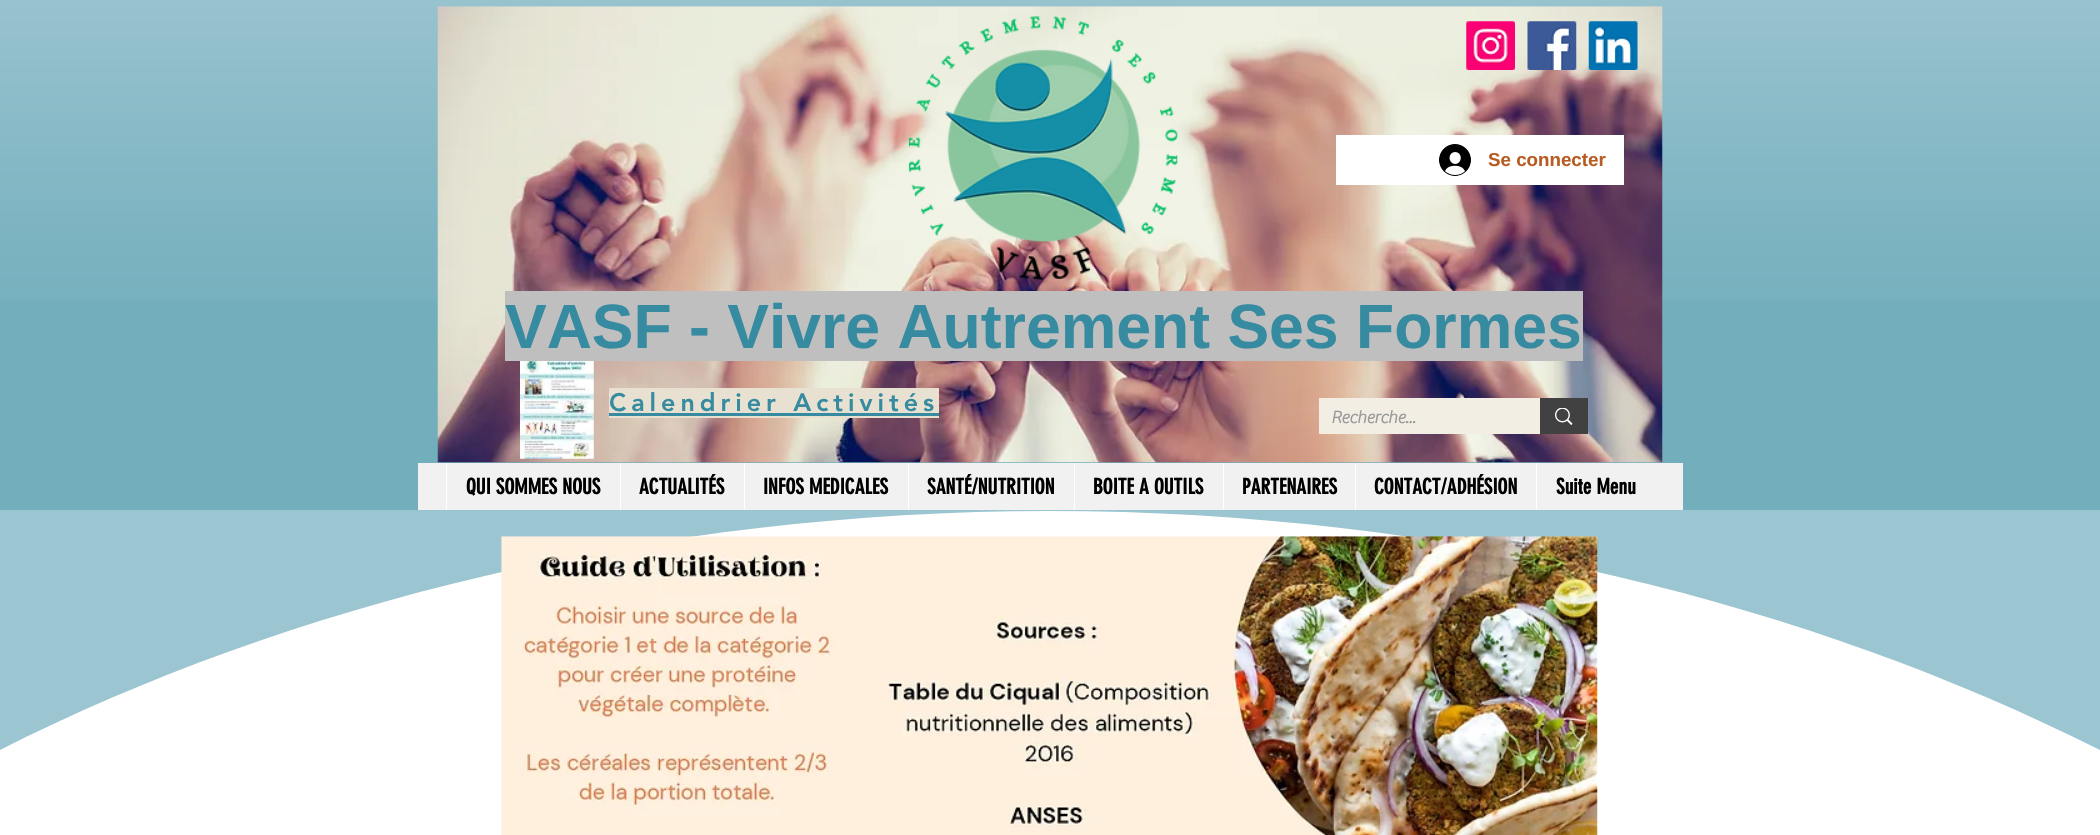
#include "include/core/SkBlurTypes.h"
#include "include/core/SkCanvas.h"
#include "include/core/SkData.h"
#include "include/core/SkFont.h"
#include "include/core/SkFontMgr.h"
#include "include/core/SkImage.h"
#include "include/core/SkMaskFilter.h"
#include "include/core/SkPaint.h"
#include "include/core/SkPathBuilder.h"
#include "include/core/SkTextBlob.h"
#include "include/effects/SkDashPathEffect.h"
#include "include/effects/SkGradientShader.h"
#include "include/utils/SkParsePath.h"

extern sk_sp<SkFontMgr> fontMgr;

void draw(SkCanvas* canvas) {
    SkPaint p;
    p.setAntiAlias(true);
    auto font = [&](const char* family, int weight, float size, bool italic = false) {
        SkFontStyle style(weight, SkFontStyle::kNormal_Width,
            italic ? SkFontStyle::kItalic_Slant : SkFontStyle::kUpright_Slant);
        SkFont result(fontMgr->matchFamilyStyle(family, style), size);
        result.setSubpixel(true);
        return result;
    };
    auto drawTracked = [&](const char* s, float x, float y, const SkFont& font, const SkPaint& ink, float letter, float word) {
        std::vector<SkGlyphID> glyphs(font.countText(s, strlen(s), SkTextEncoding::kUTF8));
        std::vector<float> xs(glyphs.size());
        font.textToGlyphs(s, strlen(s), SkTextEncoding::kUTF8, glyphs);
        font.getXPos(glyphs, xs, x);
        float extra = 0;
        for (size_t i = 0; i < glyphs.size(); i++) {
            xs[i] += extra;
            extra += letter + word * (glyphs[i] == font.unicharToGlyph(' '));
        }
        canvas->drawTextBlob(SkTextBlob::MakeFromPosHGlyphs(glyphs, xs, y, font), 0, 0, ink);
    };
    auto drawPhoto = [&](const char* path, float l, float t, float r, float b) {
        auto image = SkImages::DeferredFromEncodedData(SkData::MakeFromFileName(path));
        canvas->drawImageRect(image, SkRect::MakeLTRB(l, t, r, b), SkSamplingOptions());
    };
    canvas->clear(0xFFFFFFFF);
    p.setColor(0xFF73AEBD);
    canvas->drawRect(SkRect::MakeLTRB(0, 0, 2100, 511), p);
    drawPhoto("media/1.png", 0, 0, 2100, 301);
    drawPhoto("media/5.png", 437, 6, 1663, 463);
    drawPhoto("media/2.png", 1466, 21, 1515, 70);
    drawPhoto("media/3.png", 1527, 21, 1577, 70);
    drawPhoto("media/4.png", 1588, 21, 1638, 70);
    drawPhoto("media/6.png", 908, 16, 1178, 281);
    p.setColor(0xFFFFFFFF);
    canvas->drawRect(SkRect::MakeLTRB(1336, 135, 1624, 185), p);
    drawPhoto("media/7.png", 1439, 144, 1471, 176);
    auto font1 = font("Liberation Sans", 700, 18.75f);
    p.setColor(0xFFB85C23);
    canvas->drawString("Se connecter", 1488, 166, font1, p);
    p.setColor(0xFFBFBFBF);
    canvas->drawRect(SkRect::MakeLTRB(505, 291, 1583, 361), p);
    auto font2 = font("Liberation Sans", 700, 62.5f);
    p.setColor(0xFF368BA0);
    canvas->drawString("VASF - Vivre Autrement Ses Formes", 505, 348, font2, p);
    drawPhoto("media/8.png", 520, 361, 594, 459);
    p.setColor(0xFFE8E1D1);
    canvas->drawRect(SkRect::MakeLTRB(609, 388, 939, 418), p);
    auto font3 = font("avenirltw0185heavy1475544", 900, 25);
    p.setColor(0xFF368BA0);
    drawTracked("Calendrier Activités", 609, 411, font3, p, 5, 0);
    canvas->drawRect(SkRect::MakeLTRB(609, 413, 939, 416), p);
    p.setColor(0xFFF2EEE4);
    canvas->drawRect(SkRect::MakeLTRB(1319, 398, 1540, 434), p);
    auto font4 = font("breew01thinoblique", 700, 17.5f);
    p.setColor(0xFF999999);
    canvas->drawString("Recherche...", 1331, 423, font4, p);
    p.setColor(0xFF414141);
    canvas->drawRect(SkRect::MakeLTRB(1540, 398, 1588, 434), p);
    drawPhoto("media/9.png", 1555, 408, 1573, 425);
    p.setColor(0xFFF1F1F1);
    canvas->drawRect(SkRect::MakeLTRB(418, 463, 1683, 511), p);
    p.setColor(0xFFFFFFFF);
    canvas->drawRect(SkRect::MakeLTRB(446, 463, 447, 511), p);
    auto font5 = font("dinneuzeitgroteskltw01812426", 700, 21.25f);
    p.setColor(0xFF000000);
    canvas->drawString("QUI SOMMES NOUS", 466, 494, font5, p);
    p.setColor(0xFFFFFFFF);
    canvas->drawRect(SkRect::MakeLTRB(620, 463, 621, 511), p);
    p.setColor(0xFF000000);
    canvas->drawString("ACTUALITÉS", 639, 494, font5, p);
    p.setColor(0xFFFFFFFF);
    canvas->drawRect(SkRect::MakeLTRB(744, 463, 745, 511), p);
    p.setColor(0xFF000000);
    canvas->drawString("INFOS MEDICALES", 763, 494, font5, p);
    p.setColor(0xFFFFFFFF);
    canvas->drawRect(SkRect::MakeLTRB(908, 463, 909, 511), p);
    p.setColor(0xFF000000);
    canvas->drawString("SANTÉ/NUTRITION", 927, 494, font5, p);
    p.setColor(0xFFFFFFFF);
    canvas->drawRect(SkRect::MakeLTRB(1074, 463, 1075, 511), p);
    p.setColor(0xFF000000);
    canvas->drawString("BOITE A OUTILS", 1093, 494, font5, p);
    p.setColor(0xFFFFFFFF);
    canvas->drawRect(SkRect::MakeLTRB(1223, 463, 1224, 511), p);
    p.setColor(0xFF000000);
    canvas->drawString("PARTENAIRES", 1242, 494, font5, p);
    p.setColor(0xFFFFFFFF);
    canvas->drawRect(SkRect::MakeLTRB(1355, 463, 1356, 511), p);
    p.setColor(0xFF000000);
    canvas->drawString("CONTACT/ADHÉSION", 1374, 494, font5, p);
    p.setColor(0xFFFFFFFF);
    canvas->drawRect(SkRect::MakeLTRB(1536, 463, 1537, 511), p);
    p.setColor(0xFF000000);
    canvas->drawString("Suite Menu", 1556, 494, font5, p);
    p.setColor(0xFF9BC5D0);
    canvas->drawPath(SkPathBuilder(SkPathFillType::kEvenOdd).moveTo(2100, 750).cubicTo(1812, 605, 1447, 511, 1050, 511).cubicTo(653, 511, 287, 605, 0, 750).lineTo(0, 761).lineTo(2100, 761).close().moveTo(0, 510).lineTo(2100, 510).lineTo(2100, 761).lineTo(0, 761).close().detach(), p);
    drawPhoto("media/10.png", 501, 536, 1598, 835);
}
